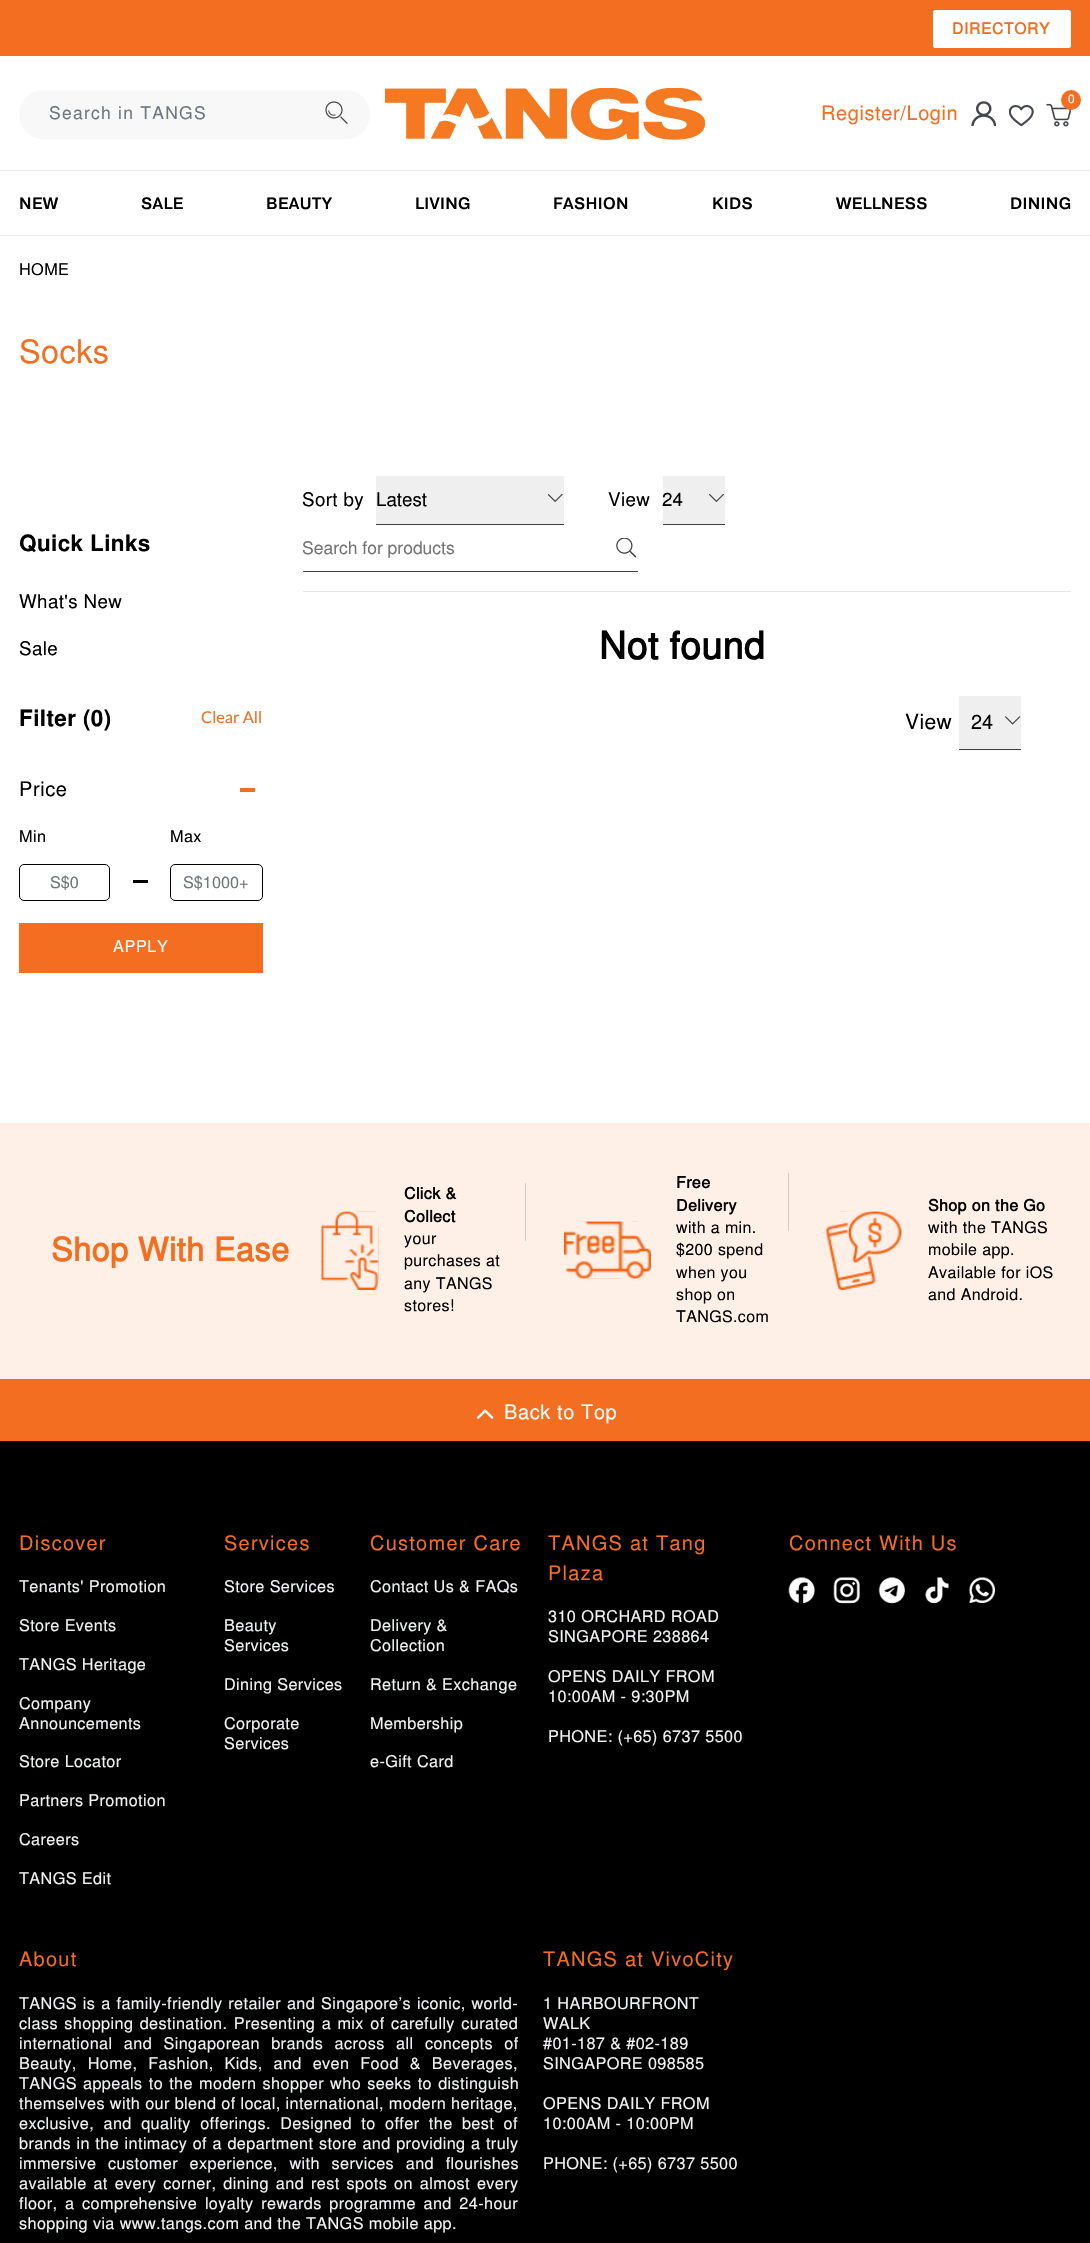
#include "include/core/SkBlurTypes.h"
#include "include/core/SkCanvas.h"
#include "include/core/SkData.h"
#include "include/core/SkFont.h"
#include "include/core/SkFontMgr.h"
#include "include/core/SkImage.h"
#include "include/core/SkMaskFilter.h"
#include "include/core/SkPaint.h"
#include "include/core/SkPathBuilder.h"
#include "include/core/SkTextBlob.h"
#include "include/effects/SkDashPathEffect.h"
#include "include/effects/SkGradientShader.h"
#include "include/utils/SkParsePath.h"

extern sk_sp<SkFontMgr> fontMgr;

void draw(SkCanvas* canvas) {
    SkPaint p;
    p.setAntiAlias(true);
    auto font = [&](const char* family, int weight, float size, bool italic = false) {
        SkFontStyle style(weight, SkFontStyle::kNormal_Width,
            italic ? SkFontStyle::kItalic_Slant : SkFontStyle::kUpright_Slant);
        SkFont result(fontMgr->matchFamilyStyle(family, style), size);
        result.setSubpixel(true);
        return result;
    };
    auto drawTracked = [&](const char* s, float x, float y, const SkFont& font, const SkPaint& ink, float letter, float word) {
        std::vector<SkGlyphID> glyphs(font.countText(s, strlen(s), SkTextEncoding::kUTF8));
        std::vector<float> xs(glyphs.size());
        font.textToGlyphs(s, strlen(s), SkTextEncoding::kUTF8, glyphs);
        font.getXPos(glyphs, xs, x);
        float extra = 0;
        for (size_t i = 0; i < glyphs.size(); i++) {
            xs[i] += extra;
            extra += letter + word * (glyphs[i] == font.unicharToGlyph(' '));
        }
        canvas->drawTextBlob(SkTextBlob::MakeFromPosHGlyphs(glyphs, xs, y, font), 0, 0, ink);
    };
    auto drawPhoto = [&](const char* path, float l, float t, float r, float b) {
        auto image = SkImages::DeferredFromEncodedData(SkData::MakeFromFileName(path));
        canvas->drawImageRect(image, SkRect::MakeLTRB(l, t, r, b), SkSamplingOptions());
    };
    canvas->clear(0xFFFFFFFF);
    p.setColor(0xFFF36E21);
    canvas->drawRect(SkRect::MakeLTRB(0, 0, 1090, 56), p);
    p.setColor(0xFFFFFFFF);
    canvas->drawRoundRect(SkRect::MakeLTRB(933, 10, 1071, 48), 2.5f, 2.5f, p);
    auto font1 = font("FreeSans", 700, 15.5f);
    p.setColor(0xFFF36E21);
    drawTracked("DIRECTORY", 952, 34, font1, p, 0.75f, 0);
    p.setColor(0xFFF8F8F8);
    canvas->drawRoundRect(SkRect::MakeLTRB(19, 90, 370, 139), 24.5f, 24.5f, p);
    auto font2 = font("FreeSans", 400, 17.5f);
    p.setColor(0xFF72757E);
    drawTracked("Search in TANGS", 49, 119, font2, p, 1.25f, 0);
    drawPhoto("media/1.png", 325, 101, 348, 124);
    drawPhoto("media/2.png", 385, 88, 705, 140);
    drawPhoto("media/3.png", 1046, 103, 1071, 127);
    p.setColor(0xFFF36E21);
    canvas->drawCircle(1071, 100, 10, p);
    auto font3 = font("FreeSans", 400, 12);
    p.setColor(0xFFFFFFFF);
    drawTracked("0", 1068, 103, font3, p, 0.38f, 0);
    auto font4 = font("FreeSans", 400, 20);
    p.setColor(0xFFF36E21);
    drawTracked("Register/Login", 821, 120, font4, p, 0.6f, 0);
    drawPhoto("media/4.png", 971, 101, 996, 126);
    drawPhoto("media/5.png", 1009, 105, 1034, 127);
    p.setColor(0xFFEBEBEB);
    canvas->drawRect(SkRect::MakeLTRB(0, 170, 1090, 171), p);
    auto font5 = font("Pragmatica", 500, 16.25f);
    p.setColor(0xFF000000);
    {
        const struct { const char* s; float x, y; } items[] = {
            {"NEW", 19, 209},
            {"SALE", 141, 209},
            {"BEAUTY", 266, 209},
            {"LIVING", 415, 209},
            {"FASHION", 553, 209},
            {"KIDS", 712, 209},
            {"WELLNESS", 836, 209},
            {"DINING", 1010, 209},
        };
        for (auto [s, x, y] : items) {
            drawTracked(s, x, y, font5, p, 0.38f, 0);
        }
    }
    p.setColor(0xFFEBEBEB);
    canvas->drawRect(SkRect::MakeLTRB(0, 235, 1090, 236), p);
    auto font6 = font("FreeSans", 400, 16.25f);
    p.setColor(0xFF000000);
    drawTracked("HOME", 19, 275, font6, p, 0.38f, 0);
    auto font7 = font("FreeSans", 400, 32.5f);
    p.setColor(0xFFF36E21);
    drawTracked("Socks", 19, 363, font7, p, 0.38f, 0);
    auto font8 = font("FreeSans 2", 700, 22.5f);
    p.setColor(0xFF000000);
    drawTracked("Quick Links", 19, 551, font8, p, 0.38f, 0);
    auto font9 = font("FreeSans", 400, 18.75f);
    drawTracked("What's New", 19, 608, font9, p, 0.38f, 0);
    drawTracked("Sale", 19, 655, font9, p, 0.38f, 0);
    drawTracked("Filter (0)", 19, 726, font8, p, 0.38f, 0);
    auto font10 = font("Lato", 400, 16.25f);
    p.setColor(0xFFF36E21);
    canvas->drawString("Clear All", 201, 723, font10, p);
    p.setColor(0xFF000000);
    drawTracked("Price", 19, 796, font4, p, 0.6f, 0);
    p.setColor(0xFFF36E21);
    canvas->drawRect(SkRect::MakeLTRB(240, 788, 255, 792), p);
    p.setColor(0xFF000000);
    drawTracked("Min", 19, 842, font6, p, 0.38f, 0);
    p.setStyle(SkPaint::kStroke_Style);
    p.setStrokeWidth(1);
    canvas->drawRoundRect(SkRect::MakeLTRB(19.5f, 864.5f, 109.5f, 900.5f), 4.5f, 4.5f, p);
    p.setStyle(SkPaint::kFill_Style);
    p.setColor(0xFF72757E);
    canvas->drawString("S$0", 50, 888, font6, p);
    p.setColor(0xFF000000);
    canvas->drawRect(SkRect::MakeLTRB(133, 880, 148, 883), p);
    drawTracked("Max", 170, 842, font6, p, 0.38f, 0);
    p.setStyle(SkPaint::kStroke_Style);
    canvas->drawRoundRect(SkRect::MakeLTRB(170.5f, 864.5f, 262.5f, 900.5f), 4.5f, 4.5f, p);
    p.setStyle(SkPaint::kFill_Style);
    p.setColor(0xFF72757E);
    canvas->drawString("S$1000+", 183, 888, font6, p);
    p.setColor(0xFFF36E21);
    canvas->drawRect(SkRect::MakeLTRB(19, 923, 263, 973), p);
    p.setColor(0xFFFFFFFF);
    drawTracked("APPLY", 113, 952, font6, p, 0.6f, 0);
    p.setColor(0xFFE6E7E8);
    canvas->drawRect(SkRect::MakeLTRB(303, 591, 1071, 592), p);
    p.setColor(0xFF000000);
    drawTracked("Sort by", 302, 506, font9, p, 0.38f, 0);
    p.setColor(0xFFEFEFEF);
    canvas->drawRect(SkRect::MakeLTRB(376, 476, 564, 524), p);
    drawPhoto("media/6.png", 548, 494, 563, 502);
    p.setColor(0xFF404040);
    canvas->drawRect(SkRect::MakeLTRB(376, 524, 564, 525), p);
    p.setColor(0xFF000000);
    canvas->drawString("Latest", 376, 506, font9, p);
    drawTracked("View", 608, 506, font9, p, 0.38f, 0);
    p.setColor(0xFFEFEFEF);
    canvas->drawRect(SkRect::MakeLTRB(663, 476, 725, 524), p);
    drawPhoto("media/7.png", 709, 494, 724, 502);
    p.setColor(0xFF404040);
    canvas->drawRect(SkRect::MakeLTRB(663, 524, 725, 525), p);
    p.setColor(0xFF000000);
    canvas->drawString("24", 662, 506, font9, p);
    p.setColor(0xFF404040);
    canvas->drawRect(SkRect::MakeLTRB(303, 571, 638, 572), p);
    p.setColor(0xFF757575);
    canvas->drawString("Search for products", 302, 554, font2, p);
    drawPhoto("media/8.png", 616, 538, 636, 558);
    auto font11 = font("FreeSans", 700, 37.5f);
    p.setColor(0xFF000000);
    drawTracked("Not found", 599, 659, font11, p, 0.38f, 0);
    auto font12 = font("FreeSans", 400, 21);
    drawTracked("View", 905, 729, font12, p, 0.38f, 0);
    p.setColor(0xFFEFEFEF);
    canvas->drawRect(SkRect::MakeLTRB(959, 696, 1021, 749), p);
    drawPhoto("media/9.png", 1005, 716, 1021, 725);
    p.setColor(0xFF404040);
    canvas->drawRect(SkRect::MakeLTRB(959, 749, 1021, 750), p);
    p.setColor(0xFF000000);
    canvas->drawString("24", 971, 729, font4, p);
    p.setColor(0xFFFFF0E7);
    canvas->drawRect(SkRect::MakeLTRB(0, 1123, 1090, 1379), p);
    auto font13 = font("FreeSans", 700, 32.5f);
    p.setColor(0xFFF36E21);
    drawTracked("Shop With Ease", 51, 1261, font13, p, 0.38f, 0);
    drawPhoto("media/10.png", 321, 1211, 379, 1290);
    auto font14 = font("FreeSans", 700, 16);
    p.setColor(0xFF000000);
    drawTracked("Click &", 404, 1199, font14, p, 0.38f, 0);
    drawTracked("Collect", 404, 1222, font14, p, 0.38f, 0);
    auto font15 = font("FreeSans", 400, 16);
    {
        const struct { const char* s; float x, y; } items[] = {
            {"your", 404, 1244},
            {"purchases at", 404, 1266},
            {"any TANGS", 404, 1289},
            {"stores!", 404, 1311},
        };
        for (auto [s, x, y] : items) {
            drawTracked(s, x, y, font15, p, 0.38f, 0);
        }
    }
    p.setColor(0xFFCCCCCC);
    canvas->drawRect(SkRect::MakeLTRB(525, 1183, 526, 1241), p);
    drawPhoto("media/11.png", 564, 1221, 651, 1279);
    p.setColor(0xFF000000);
    drawTracked("Free", 676, 1188, font14, p, 0.38f, 0);
    drawTracked("Delivery", 676, 1211, font14, p, 0.38f, 0);
    {
        const struct { const char* s; float x, y; } items[] = {
            {"with a min.", 676, 1233},
            {"$200 spend", 676, 1255},
            {"when you", 676, 1278},
            {"shop on", 676, 1300},
            {"TANGS.com", 676, 1322},
        };
        for (auto [s, x, y] : items) {
            drawTracked(s, x, y, font15, p, 0.38f, 0);
        }
    }
    p.setColor(0xFFCCCCCC);
    canvas->drawRect(SkRect::MakeLTRB(788, 1173, 789, 1231), p);
    drawPhoto("media/12.png", 826, 1211, 902, 1290);
    p.setColor(0xFF000000);
    drawTracked("Shop on the Go", 928, 1211, font14, p, 0.38f, 0);
    {
        const struct { const char* s; float x, y; } items[] = {
            {"with the TANGS", 928, 1233},
            {"mobile app.", 928, 1255},
            {"Available for iOS", 928, 1278},
            {"and Android.", 928, 1300},
        };
        for (auto [s, x, y] : items) {
            drawTracked(s, x, y, font15, p, 0.38f, 0);
        }
    }
    p.setColor(0xFFF36E21);
    canvas->drawRect(SkRect::MakeLTRB(0, 1379, 1090, 1441), p);
    drawPhoto("media/13.png", 476, 1409, 494, 1419);
    p.setColor(0xFFFFFFFF);
    drawTracked("Back to Top", 504, 1419, font4, p, 0.6f, 0);
    p.setColor(0xFF000000);
    canvas->drawRect(SkRect::MakeLTRB(0, 1441, 1090, 2243), p);
    p.setColor(0xFFF36E21);
    drawTracked("Discover", 19, 1550, font4, p, 1.25f, 0);
    p.setColor(0xFFF1F2F3);
    {
        const struct { const char* s; float x, y; } items[] = {
            {"Tenants' Promotion", 19, 1592},
            {"Store Events", 19, 1631},
            {"TANGS Heritage", 19, 1670},
            {"Company", 19, 1709},
            {"Announcements", 19, 1729},
            {"Store Locator", 19, 1767},
            {"Partners Promotion", 19, 1806},
            {"Careers", 19, 1845},
            {"TANGS Edit", 19, 1884},
        };
        for (auto [s, x, y] : items) {
            drawTracked(s, x, y, font6, p, 0.38f, 0);
        }
    }
    p.setColor(0xFFF36E21);
    drawTracked("Services", 224, 1550, font4, p, 1.25f, 0);
    p.setColor(0xFFF1F2F3);
    {
        const struct { const char* s; float x, y; } items[] = {
            {"Store Services", 224, 1592},
            {"Beauty", 224, 1631},
            {"Services", 224, 1651},
            {"Dining Services", 224, 1690},
            {"Corporate", 224, 1729},
            {"Services", 224, 1749},
        };
        for (auto [s, x, y] : items) {
            drawTracked(s, x, y, font6, p, 0.38f, 0);
        }
    }
    p.setColor(0xFFF36E21);
    drawTracked("Customer Care", 370, 1550, font4, p, 1.25f, 0);
    p.setColor(0xFFF1F2F3);
    {
        const struct { const char* s; float x, y; } items[] = {
            {"Contact Us & FAQs", 370, 1592},
            {"Delivery &", 370, 1631},
            {"Collection", 370, 1651},
            {"Return & Exchange", 370, 1690},
            {"Membership", 370, 1729},
            {"e-Gift Card", 370, 1767},
        };
        for (auto [s, x, y] : items) {
            drawTracked(s, x, y, font6, p, 0.38f, 0);
        }
    }
    p.setColor(0xFFF36E21);
    drawTracked("TANGS at Tang", 548, 1550, font4, p, 1.25f, 0);
    drawTracked("Plaza", 548, 1580, font4, p, 1.25f, 0);
    p.setColor(0xFFF1F2F3);
    {
        const struct { const char* s; float x, y; } items[] = {
            {"310 ORCHARD ROAD", 548, 1622},
            {"SINGAPORE 238864", 548, 1642},
            {"OPENS DAILY FROM", 548, 1682},
            {"10:00AM - 9:30PM", 548, 1702},
            {"PHONE: (+65) 6737 5500", 548, 1742},
        };
        for (auto [s, x, y] : items) {
            drawTracked(s, x, y, font6, p, 0.38f, 0);
        }
    }
    p.setColor(0xFFF36E21);
    drawTracked("Connect With Us", 789, 1550, font4, p, 1.25f, 0);
    drawPhoto("media/14.png", 788, 1577, 815, 1603);
    drawPhoto("media/15.png", 833, 1577, 860, 1604);
    drawPhoto("media/16.png", 878, 1577, 905, 1604);
    drawPhoto("media/17.png", 925, 1577, 949, 1604);
    drawPhoto("media/18.png", 968, 1577, 995, 1604);
    drawTracked("About", 19, 1966, font4, p, 1.25f, 0);
    p.setColor(0xFFF1F2F3);
    drawTracked("TANGS is a family-friendly retailer and Singapore’s iconic, world-", 19, 2009, font6, p, 0.38f, 1);
    drawTracked("class shopping destination. Presenting a mix of carefully curated", 19, 2029, font6, p, 0.38f, 1.5f);
    drawTracked("international and Singaporean brands across all concepts of", 19, 2049, font6, p, 0.38f, 6.5f);
    drawTracked("Beauty, Home, Fashion, Kids, and even Food & Beverages,", 19, 2069, font6, p, 0.38f, 6);
    drawTracked("TANGS appeals to the modern shopper who seeks to distinguish", 19, 2089, font6, p, 0.38f, 1.25f);
    drawTracked("themselves with our blend of local, international, modern heritage,", 19, 2109, font6, p, 0.38f, 0);
    drawTracked("exclusive, and quality offerings. Designed to offer the best of", 19, 2129, font6, p, 0.38f, 4.5f);
    drawTracked("brands in the intimacy of a department store and providing a truly", 19, 2149, font6, p, 0.38f, 0.6f);
    drawTracked("immersive customer experience, with services and flourishes", 19, 2169, font6, p, 0.38f, 6.75f);
    drawTracked("available at every corner, dining and rest spots on almost every", 19, 2189, font6, p, 0.38f, 2);
    drawTracked("floor, a comprehensive loyalty rewards programme and 24-hour", 19, 2209, font6, p, 0.38f, 2.75f);
    drawTracked("shopping via www.tangs.com and the TANGS mobile app.", 19, 2229, font6, p, 0.38f, 0);
    p.setColor(0xFFF36E21);
    drawTracked("TANGS at VivoCity", 543, 1966, font4, p, 1.25f, 0);
    p.setColor(0xFFF1F2F3);
    {
        const struct { const char* s; float x, y; } items[] = {
            {"1 HARBOURFRONT", 543, 2009},
            {"WALK", 543, 2029},
            {"#01-187 & #02-189", 543, 2049},
            {"SINGAPORE 098585", 543, 2069},
            {"OPENS DAILY FROM", 543, 2109},
            {"10:00AM - 10:00PM", 543, 2129},
            {"PHONE: (+65) 6737 5500", 543, 2169},
        };
        for (auto [s, x, y] : items) {
            drawTracked(s, x, y, font6, p, 0.38f, 0);
        }
    }
}
